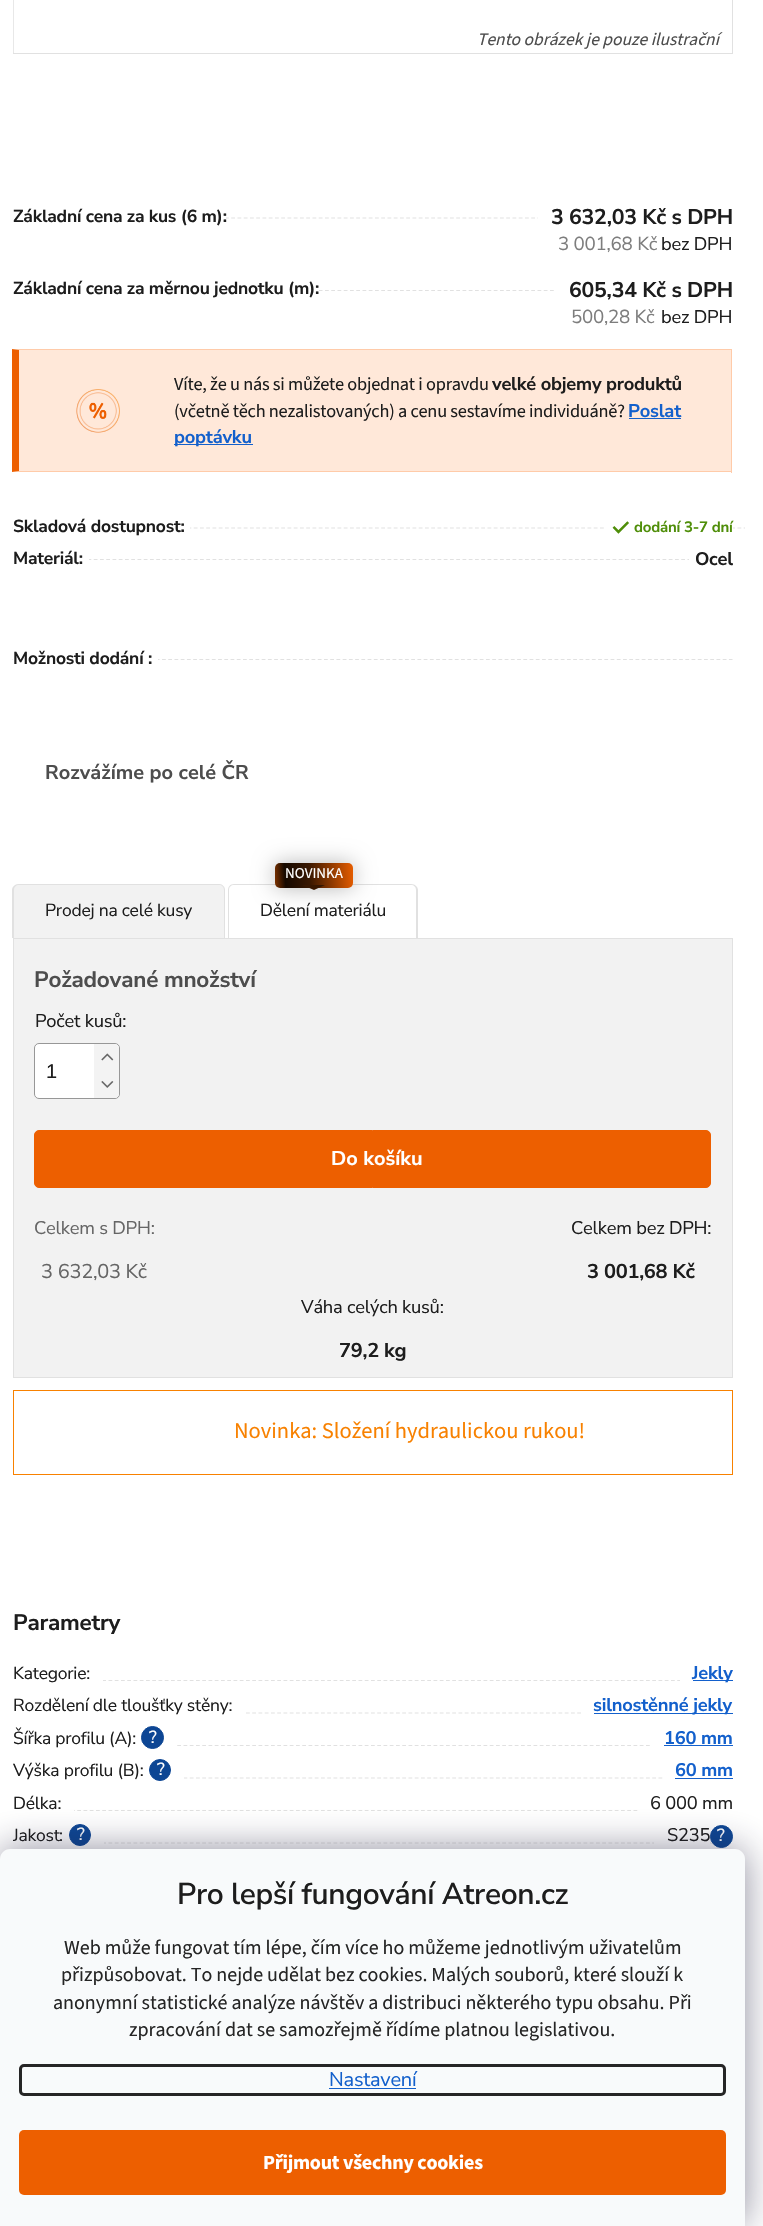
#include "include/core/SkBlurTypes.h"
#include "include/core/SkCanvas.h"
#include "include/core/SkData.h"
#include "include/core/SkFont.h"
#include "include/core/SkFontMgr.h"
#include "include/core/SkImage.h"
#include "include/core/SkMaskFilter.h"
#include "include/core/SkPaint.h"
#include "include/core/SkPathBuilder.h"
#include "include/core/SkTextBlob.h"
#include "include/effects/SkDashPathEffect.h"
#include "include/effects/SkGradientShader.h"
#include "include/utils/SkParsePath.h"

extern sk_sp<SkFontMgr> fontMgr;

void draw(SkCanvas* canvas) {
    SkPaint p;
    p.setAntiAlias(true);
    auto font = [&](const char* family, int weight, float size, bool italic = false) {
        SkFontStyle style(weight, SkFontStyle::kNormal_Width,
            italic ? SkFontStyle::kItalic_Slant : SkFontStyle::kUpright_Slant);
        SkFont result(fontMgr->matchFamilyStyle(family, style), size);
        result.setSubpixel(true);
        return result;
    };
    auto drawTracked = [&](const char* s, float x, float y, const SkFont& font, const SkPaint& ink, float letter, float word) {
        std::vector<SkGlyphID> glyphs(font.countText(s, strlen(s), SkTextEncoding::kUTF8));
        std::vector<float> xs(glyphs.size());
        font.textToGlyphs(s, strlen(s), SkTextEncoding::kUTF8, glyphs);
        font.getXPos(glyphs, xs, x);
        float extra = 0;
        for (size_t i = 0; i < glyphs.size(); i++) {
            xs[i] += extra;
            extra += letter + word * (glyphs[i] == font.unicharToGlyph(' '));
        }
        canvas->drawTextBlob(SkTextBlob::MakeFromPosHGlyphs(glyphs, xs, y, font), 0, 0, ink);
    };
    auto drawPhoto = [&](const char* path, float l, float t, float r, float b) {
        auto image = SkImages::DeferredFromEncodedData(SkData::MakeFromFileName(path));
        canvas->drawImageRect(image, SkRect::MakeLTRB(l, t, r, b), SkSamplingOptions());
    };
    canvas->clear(0xFFFFFFFF);
    p.setStyle(SkPaint::kStroke_Style);
    p.setStrokeWidth(1);
    p.setColor(0xFFE1E1E1);
    canvas->drawRect(SkRect::MakeLTRB(13.5f, -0.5f, 732.5f, 53.5f), p);
    drawPhoto("media/1.png", 13, 0, 14, 53);
    auto font1 = font("Source Sans 3", 400, 17.5f, true);
    p.setStyle(SkPaint::kFill_Style);
    p.setColor(0xFF4D4D4D);
    canvas->drawString("Tento obrázek je pouze ilustrační", 477, 45, font1, p);
    canvas->save();
    canvas->clipRect(SkRect::MakeLTRB(13, 203, 733, 256));
    p.setStyle(SkPaint::kStroke_Style);
    p.setStrokeWidth(1.2f);
    p.setColor(0xFFE1E1E1);
    p.setPathEffect(SkDashPathEffect::Make({{3.75f, 2.5f}}, 0));
    canvas->drawPath(SkPathBuilder().moveTo(12.5f, 218).lineTo(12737.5f, 218).detach(), p);
    p.setPathEffect(nullptr);
    canvas->restore();
    p.setStyle(SkPaint::kFill_Style);
    p.setColor(0xFFFFFFFF);
    canvas->drawRect(SkRect::MakeLTRB(13, 217, 226, 219), p);
    auto font2 = font("Nunito Sans", 700, 17.5f);
    p.setColor(0xFF1D1D1D);
    drawTracked("Základní cena za kus (6 m):", 13, 222, font2, p, -0.22f, 0);
    p.setColor(0xFFFFFFFF);
    canvas->drawRect(SkRect::MakeLTRB(538, 217, 733, 219), p);
    auto font3 = font("Nunito Sans", 700, 21.25f);
    p.setColor(0xFF1D1D1D);
    drawTracked("3 632,03 Kč s DPH", 551, 224, font3, p, -0.22f, 0);
    auto font4 = font("Nunito Sans", 400, 18.75f);
    p.setColor(0xFF7D7D7D);
    drawTracked("3 001,68 Kč", 558, 250, font4, p, -0.25f, 0);
    auto font5 = font("Nunito Sans", 400, 18.3f);
    p.setColor(0xFF1D1D1D);
    drawTracked("bez DPH", 661, 250, font5, p, -0.22f, 0);
    canvas->save();
    canvas->clipRect(SkRect::MakeLTRB(13, 275, 733, 329));
    p.setStyle(SkPaint::kStroke_Style);
    p.setColor(0xFFE1E1E1);
    p.setPathEffect(SkDashPathEffect::Make({{3.75f, 2.5f}}, 0));
    canvas->drawPath(SkPathBuilder().moveTo(12.5f, 290.5f).lineTo(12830, 290.5f).detach(), p);
    p.setPathEffect(nullptr);
    canvas->restore();
    p.setStyle(SkPaint::kFill_Style);
    p.setColor(0xFFFFFFFF);
    canvas->drawRect(SkRect::MakeLTRB(13, 289, 319, 292), p);
    p.setColor(0xFF1D1D1D);
    drawTracked("Základní cena za měrnou jednotku (m):", 13, 294, font2, p, -0.22f, 0);
    p.setColor(0xFFFFFFFF);
    canvas->drawRect(SkRect::MakeLTRB(556, 289, 733, 292), p);
    p.setColor(0xFF1D1D1D);
    drawTracked("605,34 Kč s DPH", 569, 297, font3, p, -0.22f, 0);
    p.setColor(0xFF7D7D7D);
    drawTracked("500,28 Kč", 571, 323, font4, p, -0.25f, 0);
    p.setColor(0xFF1D1D1D);
    drawTracked("bez DPH", 661, 323, font5, p, -0.22f, 0);
    p.setColor(0xFFFFE8D9);
    canvas->drawRect(SkRect::MakeLTRB(19, 350, 731, 471), p);
    p.setColor(0xFFFFCBA9);
    canvas->drawPath(SkPathBuilder().moveTo(12, 349).lineTo(732, 349).lineTo(731, 350).lineTo(19, 350).close().detach(), p);
    canvas->drawRect(SkRect::MakeLTRB(731, 349, 732, 473), p);
    canvas->drawPath(SkPathBuilder().moveTo(732, 472).lineTo(12, 472).lineTo(19, 471).lineTo(731, 471).close().detach(), p);
    p.setColor(0xFFED5F00);
    canvas->drawPath(SkPathBuilder().moveTo(12, 472).lineTo(12, 349).lineTo(19, 350).lineTo(19, 471).close().detach(), p);
    drawPhoto("media/2.png", 76, 389, 120, 433);
    auto font6 = font("Source Sans 3", 400, 18.3f);
    p.setColor(0xFF1D1D1D);
    drawTracked("Víte, že u nás si můžete objednat i opravdu", 174, 390, font6, p, -0.22f, 0);
    auto font7 = font("Nunito Sans", 700, 18.3f);
    drawTracked("velké objemy produktů", 492, 390, font7, p, -0.22f, 0);
    drawTracked("(včetně těch nezalistovaných) a cenu sestavíme individuáně?", 174, 417, font6, p, -0.22f, 0);
    p.setColor(0xFF1360CC);
    drawTracked("Poslat", 628, 417, font7, p, -0.22f, 0);
    canvas->drawRect(SkRect::MakeLTRB(629, 418, 681, 419), p);
    canvas->drawRect(SkRect::MakeLTRB(174, 444, 253, 445), p);
    drawTracked("poptávku", 174, 443, font7, p, -0.22f, 0);
    canvas->save();
    canvas->clipRect(SkRect::MakeLTRB(0, 203, 745, 1488));
    p.setStyle(SkPaint::kStroke_Style);
    p.setColor(0xFFE1E1E1);
    p.setPathEffect(SkDashPathEffect::Make({{3.75f, 2.5f}}, 0));
    canvas->drawPath(SkPathBuilder().moveTo(12.5f, 528).lineTo(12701, 528).detach(), p);
    p.setPathEffect(nullptr);
    canvas->restore();
    p.setStyle(SkPaint::kFill_Style);
    p.setColor(0xFFFFFFFF);
    canvas->drawRect(SkRect::MakeLTRB(13, 527, 190, 529), p);
    p.setColor(0xFF1D1D1D);
    drawTracked("Skladová dostupnost:", 13, 532, font2, p, -0.22f, 0);
    p.setColor(0xFFFFFFFF);
    canvas->drawRect(SkRect::MakeLTRB(606, 527, 733, 529), p);
    drawPhoto("media/3.png", 612, 521, 629, 534);
    auto font8 = font("Nunito Sans", 700, 15);
    p.setColor(0xFF4F8E09);
    drawTracked("dodání 3-7 dní", 634, 532, font8, p, -0.22f, 0);
    canvas->save();
    canvas->clipRect(SkRect::MakeLTRB(13, 546, 733, 571));
    p.setStyle(SkPaint::kStroke_Style);
    p.setColor(0xFFE1E1E1);
    p.setPathEffect(SkDashPathEffect::Make({{3.75f, 2.5f}}, 0));
    canvas->drawPath(SkPathBuilder().moveTo(12.5f, 559.5f).lineTo(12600, 559.5f).detach(), p);
    p.setPathEffect(nullptr);
    canvas->restore();
    p.setStyle(SkPaint::kFill_Style);
    p.setColor(0xFFFFFFFF);
    canvas->drawRect(SkRect::MakeLTRB(13, 558, 89, 561), p);
    p.setColor(0xFF1D1D1D);
    drawTracked("Materiál:", 13, 564, font2, p, -0.22f, 0);
    p.setColor(0xFFFFFFFF);
    canvas->drawRect(SkRect::MakeLTRB(689, 558, 733, 561), p);
    p.setColor(0xFF1D1D1D);
    drawTracked("Ocel", 695, 565, font7, p, -0.25f, 0);
    p.setStyle(SkPaint::kStroke_Style);
    p.setColor(0xFFE1E1E1);
    p.setPathEffect(SkDashPathEffect::Make({{3.75f, 2.48f}}, 0));
    canvas->drawPath(SkPathBuilder().moveTo(12.5f, 659.5f).lineTo(732.5f, 659.5f).detach(), p);
    p.setPathEffect(nullptr);
    p.setStyle(SkPaint::kFill_Style);
    p.setColor(0xFFFFFFFF);
    canvas->drawRect(SkRect::MakeLTRB(13, 658, 158, 661), p);
    p.setColor(0xFF1D1D1D);
    drawTracked("Možnosti dodání :", 13, 664, font2, p, -0.22f, 0);
    auto font9 = font("Nunito Sans", 700, 20);
    p.setColor(0xFF4D4D4D);
    canvas->drawString("Rozvážíme po celé ČR", 45, 779, font9, p);
    p.setColor(0xFFE1E1E1);
    canvas->drawPath(SkPathBuilder(SkPathFillType::kEvenOdd).moveTo(234, 884).lineTo(411, 884).cubicTo(415, 884, 418, 887, 418, 890).lineTo(418, 938).lineTo(228, 938).lineTo(228, 890).cubicTo(228, 887, 230, 884, 234, 884).close().moveTo(234, 885).lineTo(411, 885).cubicTo(414, 885, 416, 887, 416, 890).lineTo(416, 938).lineTo(229, 938).lineTo(229, 890).cubicTo(229, 887, 231, 885, 234, 885).close().detach(), p);
    p.setColor(0x47000000);
    p.setMaskFilter(SkMaskFilter::MakeBlur(kNormal_SkBlurStyle, 10.5f));
    canvas->drawRoundRect(SkRect::MakeLTRB(275, 863, 353, 888), 5, 5, p);
    p.setMaskFilter(nullptr);
    {
        const SkColor colors[] = {0xFF813400, 0xFF160900, 0xFF371600, 0xFFE45C00};
        const float stops[] = {0, 0.14f, 0.44f, 1};
        const SkPoint ends[] = {{274, 878}, {353, 872}};
        p.setShader(SkGradientShader::MakeLinear(ends, colors, stops, 4, SkTileMode::kClamp));
        p.setAlpha(255);
    }
    canvas->drawRoundRect(SkRect::MakeLTRB(275, 863, 353, 888), 5, 5, p);
    auto font10 = font("Source Sans 3", 400, 15);
    p.setShader(nullptr);
    p.setColor(0xFFFFFFFF);
    canvas->drawString("NOVINKA", 285, 878, font10, p);
    p.setColor(0xFF371600);
    canvas->drawPath(SkPathBuilder().moveTo(302.5f, 885).lineTo(325, 885).lineTo(314, 890).close().detach(), p);
    p.setColor(0xFFF2F2F2);
    canvas->drawPath(SkPathBuilder().moveTo(19, 884).lineTo(219, 884).cubicTo(222.5f, 884, 225, 886.5f, 225, 890).lineTo(225, 938).lineTo(13, 938).lineTo(13, 890).cubicTo(13, 886.5f, 15.5f, 884, 19, 884).close().detach(), p);
    p.setColor(0xFFE1E1E1);
    canvas->drawPath(SkPathBuilder(SkPathFillType::kEvenOdd).moveTo(19, 884).lineTo(219, 884).cubicTo(222, 884, 225, 887, 225, 890).lineTo(225, 938).lineTo(12, 938).lineTo(12, 890).cubicTo(12, 887, 15, 884, 19, 884).close().moveTo(19, 885).lineTo(219, 885).cubicTo(222, 885, 224, 887, 224, 890).lineTo(224, 938).lineTo(14, 938).lineTo(14, 890).cubicTo(14, 887, 16, 885, 19, 885).close().detach(), p);
    auto font11 = font("Nunito Sans", 400, 17.5f);
    p.setColor(0xFF1D1D1D);
    drawTracked("Prodej na celé kusy", 45, 916, font11, p, -0.22f, 0);
    drawTracked("Dělení materiálu", 260, 916, font11, p, -0.22f, 0);
    p.setColor(0xFFF2F2F2);
    canvas->drawRect(SkRect::MakeLTRB(13.5f, 938.5f, 732.5f, 1377.5f), p);
    p.setStyle(SkPaint::kStroke_Style);
    p.setStrokeWidth(1);
    p.setColor(0xFFE1E1E1);
    canvas->drawRect(SkRect::MakeLTRB(13.5f, 938.5f, 732.5f, 1377.5f), p);
    auto font12 = font("Nunito Sans", 700, 22.5f);
    p.setStyle(SkPaint::kFill_Style);
    p.setColor(0xFF4D4D4D);
    drawTracked("Požadované množství", 34, 987, font12, p, -0.25f, 0);
    p.setColor(0xFFFFFFFF);
    canvas->drawRoundRect(SkRect::MakeLTRB(34.5f, 1043.5f, 119.5f, 1098.5f), 4.5f, 4.5f, p);
    p.setStyle(SkPaint::kStroke_Style);
    p.setColor(0xFF979797);
    canvas->drawRoundRect(SkRect::MakeLTRB(34.5f, 1043.5f, 119.5f, 1098.5f), 4.5f, 4.5f, p);
    p.setStyle(SkPaint::kFill_Style);
    p.setColor(0xFF1D1D1D);
    drawTracked("Počet kusů:", 35, 1027, font5, p, -0.22f, 0);
    auto font13 = font("Liberation Sans", 400, 20);
    canvas->drawString("1", 46, 1078, font13, p);
    p.setColor(0xFFF3F3F3);
    canvas->drawPath(SkPathBuilder().moveTo(94, 1070).lineTo(119, 1070).lineTo(119, 1093).cubicTo(119, 1096, 117, 1098, 114, 1098).lineTo(94, 1098).close().detach(), p);
    canvas->drawPath(SkPathBuilder().moveTo(94, 1044).lineTo(114, 1044).cubicTo(117, 1044, 119, 1046, 119, 1049).lineTo(119, 1071).lineTo(94, 1071).close().detach(), p);
    drawPhoto("media/4.png", 101, 1053, 114, 1061);
    drawPhoto("media/5.png", 101, 1081, 114, 1088);
    p.setColor(0xFFED5F00);
    canvas->drawRoundRect(SkRect::MakeLTRB(34.5f, 1130.5f, 710.5f, 1187.5f), 4.5f, 4.5f, p);
    p.setStyle(SkPaint::kStroke_Style);
    canvas->drawRoundRect(SkRect::MakeLTRB(34.5f, 1130.5f, 710.5f, 1187.5f), 4.5f, 4.5f, p);
    p.setStyle(SkPaint::kFill_Style);
    p.setColor(0xFFFFFFFF);
    canvas->drawString("Do košíku", 331, 1165, font9, p);
    p.setColor(0xFF656565);
    drawTracked("Celkem s DPH:", 34, 1234, font5, p, -0.22f, 0);
    auto font14 = font("Nunito Sans", 400, 20);
    drawTracked("3 632,03 Kč", 41, 1278, font14, p, -0.25f, 0);
    p.setColor(0xFF1D1D1D);
    drawTracked("Celkem bez DPH:", 571, 1234, font5, p, -0.22f, 0);
    drawTracked("3 001,68 Kč", 587, 1278, font9, p, -0.25f, 0);
    drawTracked("Váha celých kusů:", 301, 1313, font5, p, -0.22f, 0);
    drawTracked("79,2 kg", 339, 1357, font9, p, -0.25f, 0);
    p.setStyle(SkPaint::kStroke_Style);
    p.setColor(0xFFF88100);
    canvas->drawRect(SkRect::MakeLTRB(13.5f, 1390.5f, 732.5f, 1474.5f), p);
    auto font15 = font("Source Sans 3", 400, 22.5f);
    p.setStyle(SkPaint::kFill_Style);
    canvas->drawString("Novinka: Složení hydraulickou rukou!", 234, 1438, font15, p);
    p.setColor(0xFF1D1D1D);
    drawTracked("Parametry", 13, 1630, font12, p, -0.25f, 0);
    canvas->save();
    canvas->clipRect(SkRect::MakeLTRB(13, 1585, 733, 1985));
    p.setStyle(SkPaint::kStroke_Style);
    p.setStrokeWidth(1.2f);
    p.setColor(0xFFE1E1E1);
    p.setPathEffect(SkDashPathEffect::Make({{3.75f, 2.5f}}, 0));
    canvas->drawPath(SkPathBuilder().moveTo(-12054, 1680.5f).lineTo(732.5f, 1680.5f).detach(), p);
    p.setPathEffect(nullptr);
    canvas->restore();
    p.setStyle(SkPaint::kFill_Style);
    p.setColor(0xFFFFFFFF);
    canvas->drawRect(SkRect::MakeLTRB(14, 1679, 103, 1682), p);
    p.setColor(0xFF1D1D1D);
    drawTracked("Kategorie:", 13, 1679, font11, p, -0.22f, 0);
    p.setColor(0xFFFFFFFF);
    canvas->drawRect(SkRect::MakeLTRB(680, 1679, 731, 1682), p);
    p.setColor(0xFF1360CC);
    canvas->drawRect(SkRect::MakeLTRB(693, 1680, 733, 1681), p);
    drawTracked("Jekly", 692, 1679, font7, p, -0.22f, 0);
    canvas->save();
    canvas->clipRect(SkRect::MakeLTRB(13, 1585, 733, 1985));
    p.setStyle(SkPaint::kStroke_Style);
    p.setColor(0xFFE1E1E1);
    p.setPathEffect(SkDashPathEffect::Make({{3.75f, 2.5f}}, 0));
    canvas->drawPath(SkPathBuilder().moveTo(-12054, 1713).lineTo(732.5f, 1713).detach(), p);
    p.setPathEffect(nullptr);
    canvas->restore();
    p.setStyle(SkPaint::kFill_Style);
    p.setColor(0xFFFFFFFF);
    canvas->drawRect(SkRect::MakeLTRB(14, 1712, 244, 1714), p);
    p.setColor(0xFF1D1D1D);
    drawTracked("Rozdělení dle tloušťky stěny:", 13, 1711, font11, p, -0.22f, 0);
    p.setColor(0xFFFFFFFF);
    canvas->drawRect(SkRect::MakeLTRB(583, 1712, 731, 1714), p);
    p.setColor(0xFF1360CC);
    canvas->drawRect(SkRect::MakeLTRB(594, 1713, 733, 1714), p);
    drawTracked("silnostěnné jekly", 593, 1711, font7, p, -0.22f, 0);
    canvas->save();
    canvas->clipRect(SkRect::MakeLTRB(13, 1585, 733, 1985));
    p.setStyle(SkPaint::kStroke_Style);
    p.setColor(0xFFE1E1E1);
    p.setPathEffect(SkDashPathEffect::Make({{3.75f, 2.5f}}, 0));
    canvas->drawPath(SkPathBuilder().moveTo(-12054, 1745.5f).lineTo(732.5f, 1745.5f).detach(), p);
    p.setPathEffect(nullptr);
    canvas->restore();
    p.setStyle(SkPaint::kFill_Style);
    p.setColor(0xFFFFFFFF);
    canvas->drawRect(SkRect::MakeLTRB(14, 1744, 175, 1747), p);
    p.setColor(0xFF1D1D1D);
    drawTracked("Šířka profilu (A):", 13, 1744, font11, p, -0.22f, 0);
    p.setColor(0xFF0D4694);
    canvas->drawCircle(152.5f, 1737.5f, 11, p);
    p.setStyle(SkPaint::kStroke_Style);
    p.setStrokeWidth(1);
    canvas->drawCircle(152.5f, 1737.5f, 11, p);
    p.setStyle(SkPaint::kFill_Style);
    p.setColor(0xFFFFFFFF);
    drawTracked("?", 149, 1743, font11, p, -0.22f, 0);
    canvas->drawRect(SkRect::MakeLTRB(652, 1744, 731, 1747), p);
    p.setColor(0xFF1360CC);
    drawTracked("160 mm", 664, 1744, font7, p, -0.22f, 0);
    canvas->drawRect(SkRect::MakeLTRB(664, 1745, 733, 1746), p);
    canvas->save();
    canvas->clipRect(SkRect::MakeLTRB(13, 1585, 733, 1985));
    p.setStyle(SkPaint::kStroke_Style);
    p.setStrokeWidth(1.2f);
    p.setColor(0xFFE1E1E1);
    p.setPathEffect(SkDashPathEffect::Make({{3.75f, 2.5f}}, 0));
    canvas->drawPath(SkPathBuilder().moveTo(-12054, 1778).lineTo(732.5f, 1778).detach(), p);
    p.setPathEffect(nullptr);
    canvas->restore();
    p.setStyle(SkPaint::kFill_Style);
    p.setColor(0xFFFFFFFF);
    canvas->drawRect(SkRect::MakeLTRB(14, 1777, 184, 1779), p);
    p.setColor(0xFF1D1D1D);
    drawTracked("Výška profilu (B):", 13, 1776, font11, p, -0.22f, 0);
    p.setColor(0xFF0D4694);
    canvas->drawCircle(160, 1770, 10.5f, p);
    p.setStyle(SkPaint::kStroke_Style);
    p.setStrokeWidth(1);
    canvas->drawCircle(160, 1770, 10.5f, p);
    p.setStyle(SkPaint::kFill_Style);
    p.setColor(0xFFFFFFFF);
    drawTracked("?", 157, 1775, font11, p, -0.22f, 0);
    p.setColor(0xFF1360CC);
    drawTracked("60 mm", 675, 1776, font7, p, -0.22f, 0);
    p.setColor(0xFFFFFFFF);
    canvas->drawRect(SkRect::MakeLTRB(664, 1777, 731, 1779), p);
    p.setColor(0xFF1360CC);
    canvas->drawRect(SkRect::MakeLTRB(675, 1778, 733, 1779), p);
    canvas->save();
    canvas->clipRect(SkRect::MakeLTRB(13, 1585, 733, 1985));
    p.setStyle(SkPaint::kStroke_Style);
    p.setStrokeWidth(1.2f);
    p.setColor(0xFFE1E1E1);
    p.setPathEffect(SkDashPathEffect::Make({{3.75f, 2.5f}}, 0));
    canvas->drawPath(SkPathBuilder().moveTo(-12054, 1810.5f).lineTo(732.5f, 1810.5f).detach(), p);
    p.setPathEffect(nullptr);
    canvas->restore();
    p.setStyle(SkPaint::kFill_Style);
    p.setColor(0xFFFFFFFF);
    canvas->drawRect(SkRect::MakeLTRB(14, 1809, 74, 1812), p);
    p.setColor(0xFF1D1D1D);
    drawTracked("Délka:", 13, 1809, font11, p, -0.22f, 0);
    p.setColor(0xFFFFFFFF);
    canvas->drawRect(SkRect::MakeLTRB(639, 1809, 731, 1812), p);
    p.setColor(0xFF1D1D1D);
    drawTracked("6 000 mm", 650, 1809, font5, p, -0.22f, 0);
    canvas->save();
    canvas->clipRect(SkRect::MakeLTRB(13, 1585, 733, 1985));
    p.setStyle(SkPaint::kStroke_Style);
    p.setColor(0xFFE1E1E1);
    p.setPathEffect(SkDashPathEffect::Make({{3.75f, 2.5f}}, 0));
    canvas->drawPath(SkPathBuilder().moveTo(-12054, 1843).lineTo(732.5f, 1843).detach(), p);
    p.setPathEffect(nullptr);
    canvas->restore();
    p.setStyle(SkPaint::kFill_Style);
    p.setColor(0xFFFFFFFF);
    canvas->drawRect(SkRect::MakeLTRB(14, 1842, 104, 1844), p);
    canvas->save();
    canvas->clipRect(SkRect::MakeLTRB(13, 1585, 733, 1985));
    p.setColor(0xFF1D1D1D);
    drawTracked("Jakost", 13, 1841, font11, p, -0.22f, 0);
    canvas->restore();
    drawTracked(":", 59, 1841, font11, p, -0.22f, 0);
    p.setColor(0xFF0D4694);
    canvas->drawCircle(80, 1835, 10.5f, p);
    p.setStyle(SkPaint::kStroke_Style);
    p.setStrokeWidth(1);
    canvas->drawCircle(80, 1835, 10.5f, p);
    p.setStyle(SkPaint::kFill_Style);
    p.setColor(0xFFFFFFFF);
    drawTracked("?", 77, 1840, font11, p, -0.22f, 0);
    p.setColor(0xFF1D1D1D);
    drawTracked("S235", 667, 1841, font5, p, -0.22f, 0);
    p.setColor(0xFFFFFFFF);
    canvas->drawRect(SkRect::MakeLTRB(654, 1842, 710, 1844), p);
    p.setColor(0xFF0D4694);
    canvas->drawCircle(721.5f, 1836.5f, 11, p);
    p.setStyle(SkPaint::kStroke_Style);
    canvas->drawCircle(721.5f, 1836.5f, 11, p);
    p.setStyle(SkPaint::kFill_Style);
    p.setColor(0xFFFFFFFF);
    drawTracked("?", 717, 1841, font11, p, -0.22f, 0);
    p.setColor(0x801B1939);
    p.setMaskFilter(SkMaskFilter::MakeBlur(kNormal_SkBlurStyle, 19));
    canvas->drawRoundRect(SkRect::MakeLTRB(0, 1849, 745, 2226), 10, 10, p);
    p.setMaskFilter(nullptr);
    p.setColor(0xFFF8FAFB);
    canvas->drawPath(SkPathBuilder().moveTo(10, 1849).lineTo(735, 1849).cubicTo(740.5f, 1849, 745, 1853.5f, 745, 1859).lineTo(745, 2226).lineTo(0, 2226).lineTo(0, 1859).cubicTo(0, 1853.5f, 4.5f, 1849, 10, 1849).close().detach(), p);
    auto font16 = font("Nunito Sans", 600, 30);
    p.setColor(0xFF1D1D1D);
    drawTracked("Pro lepší fungování Atreon.cz", 177, 1904, font16, p, -0.35f, 0);
    auto font17 = font("Source Sans 3", 400, 20);
    p.setColor(0xFF252525);
    {
        const struct { const char* s; float x, y; } items[] = {
            {"Web může fungovat tím lépe, čím více ho můžeme jednotlivým uživatelům", 64, 1954},
            {"přizpůsobovat. To nejde udělat bez cookies. Malých souborů, které slouží k", 61, 1981},
            {"anonymní statistické analýze návštěv a distribuci některého typu obsahu. Při", 53, 2009},
            {"zpracování dat se samozřejmě řídíme platnou legislativou.", 129, 2036},
        };
        for (auto [s, x, y] : items) {
            canvas->drawString(s, x, y, font17, p);
        }
    }
    p.setStyle(SkPaint::kStroke_Style);
    p.setStrokeWidth(3);
    canvas->drawRoundRect(SkRect::MakeLTRB(20.5f, 2065.5f, 724.5f, 2094.5f), 3.5f, 3.5f, p);
    p.setStyle(SkPaint::kFill_Style);
    p.setColor(0xFF1360CC);
    drawTracked("Nastavení", 329, 2086, font14, p, -0.25f, 0);
    canvas->drawRect(SkRect::MakeLTRB(329, 2088, 416, 2089), p);
    p.setColor(0xFFED5F00);
    canvas->drawRoundRect(SkRect::MakeLTRB(19, 2130, 726, 2195), 5, 5, p);
    auto font18 = font("Source Sans 3", 700, 20);
    p.setColor(0xFFFFFFFF);
    drawTracked("Přijmout všechny cookies", 263, 2169, font18, p, -0.25f, 0);
}
